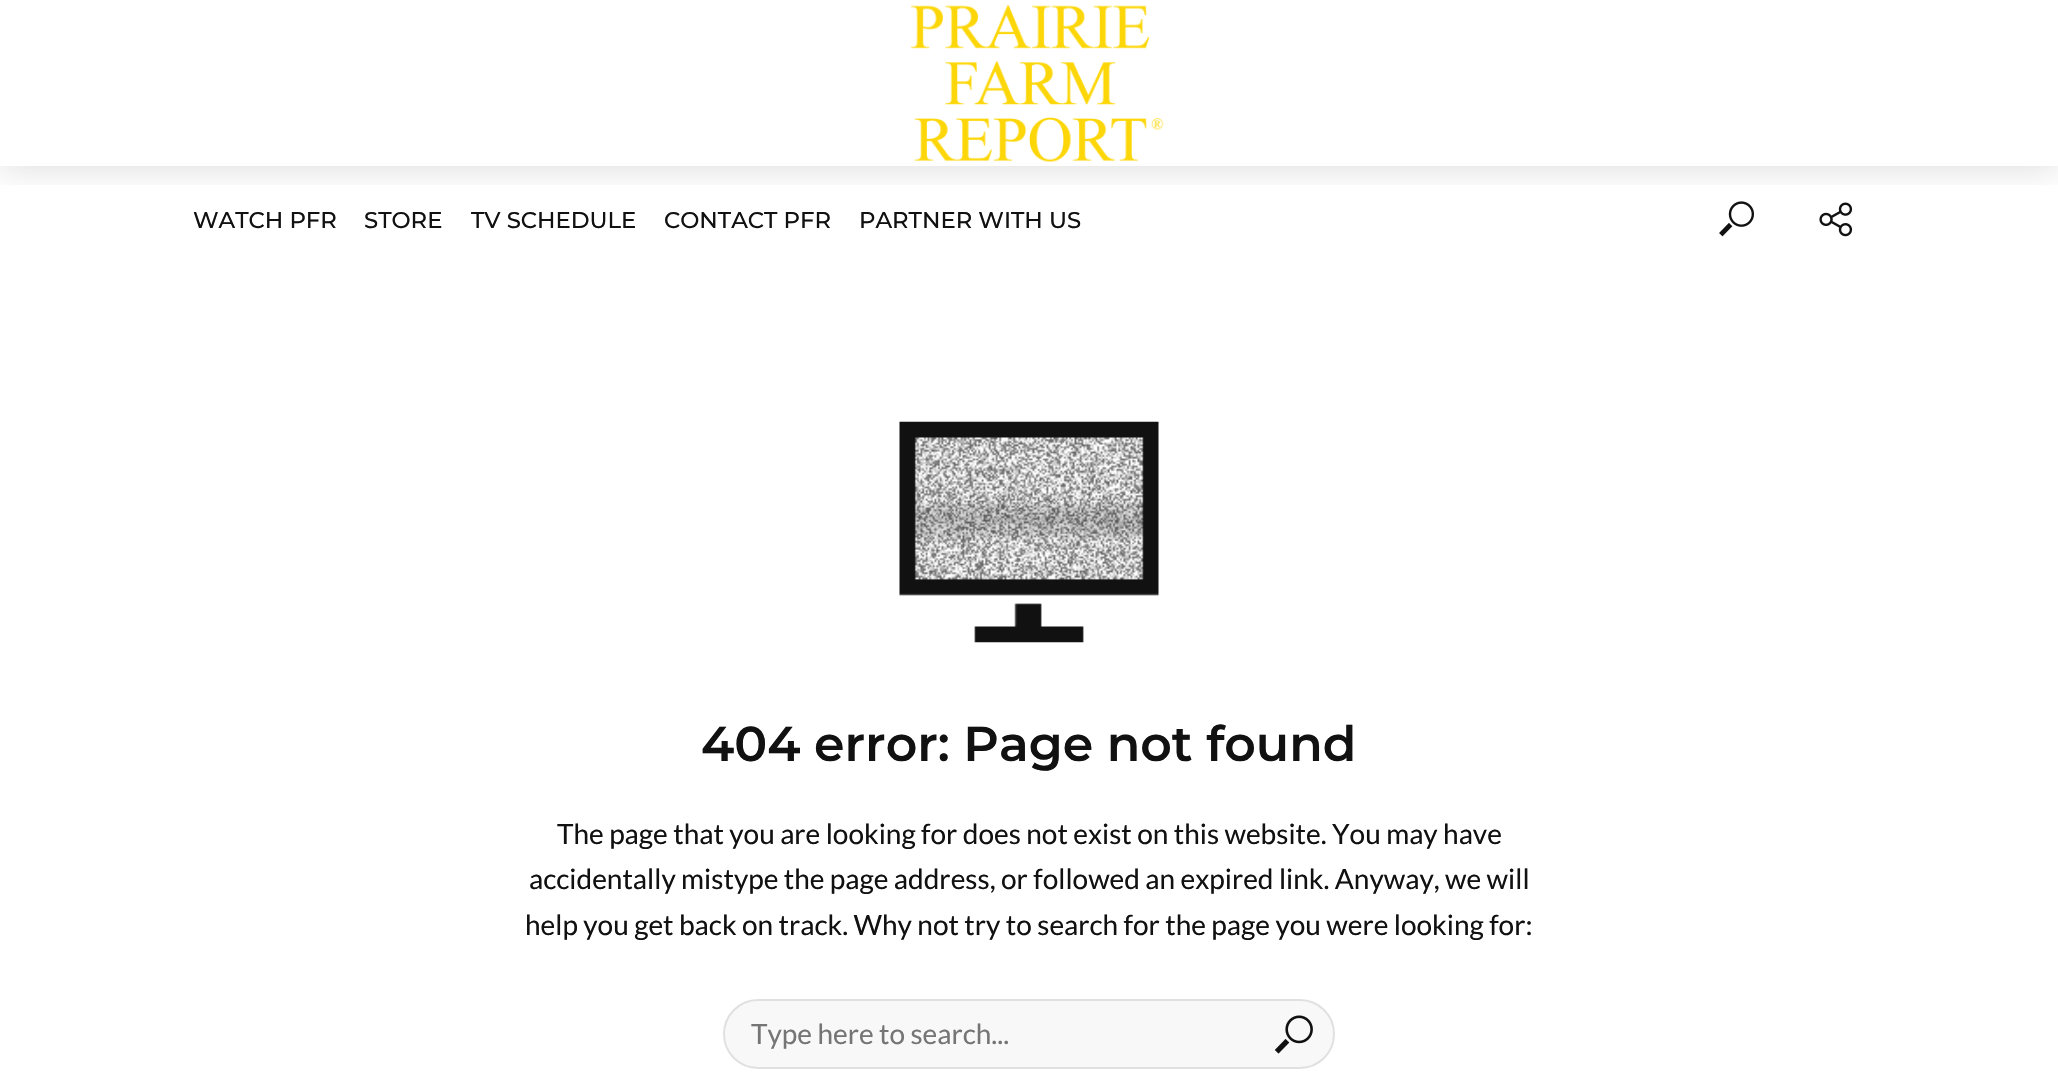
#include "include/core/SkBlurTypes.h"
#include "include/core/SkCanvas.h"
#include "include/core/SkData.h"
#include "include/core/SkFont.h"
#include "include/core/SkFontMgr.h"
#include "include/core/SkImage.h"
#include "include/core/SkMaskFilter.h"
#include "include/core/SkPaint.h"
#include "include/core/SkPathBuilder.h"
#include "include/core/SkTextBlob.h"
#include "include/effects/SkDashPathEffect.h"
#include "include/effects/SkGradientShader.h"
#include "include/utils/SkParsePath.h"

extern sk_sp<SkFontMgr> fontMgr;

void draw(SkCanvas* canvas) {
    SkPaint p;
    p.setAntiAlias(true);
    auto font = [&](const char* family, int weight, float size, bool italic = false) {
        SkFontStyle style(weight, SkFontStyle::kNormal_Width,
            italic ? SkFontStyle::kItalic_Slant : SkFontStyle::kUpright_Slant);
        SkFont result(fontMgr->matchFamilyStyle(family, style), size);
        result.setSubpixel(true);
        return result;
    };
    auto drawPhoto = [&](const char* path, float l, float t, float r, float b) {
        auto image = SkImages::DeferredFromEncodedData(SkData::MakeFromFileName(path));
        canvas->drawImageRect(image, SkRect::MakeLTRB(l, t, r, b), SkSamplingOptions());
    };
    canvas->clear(0xFFFFFFFF);
    drawPhoto("media/2.png", 1719, 201, 1754, 237);
    drawPhoto("media/3.png", 1819, 202, 1853, 237);
    canvas->save();
    canvas->clipRect(SkRect::MakeLTRB(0, 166, 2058, 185));
    p.setColor(0x26000000);
    p.setMaskFilter(SkMaskFilter::MakeBlur(kNormal_SkBlurStyle, 17.5f));
    canvas->drawRect(SkRect::MakeLTRB(0, 0, 2058, 166), p);
    p.setMaskFilter(nullptr);
    canvas->restore();
    drawPhoto("media/1.png", 910, 4, 1164, 162);
    auto font1 = font("Montserrat", 500, 22.75f);
    p.setColor(0xFF111111);
    {
        const struct { const char* s; float x, y; } items[] = {
            {"WATCH PFR", 193, 228},
            {"STORE", 364, 228},
            {"TV SCHEDULE", 471, 228},
            {"CONTACT PFR", 664, 228},
            {"PARTNER WITH US", 859, 228},
        };
        for (auto [s, x, y] : items) {
            canvas->drawString(s, x, y, font1, p);
        }
    }
    drawPhoto("media/4.png", 899, 421, 1159, 643);
    auto font2 = font("Montserrat", 600, 49);
    canvas->drawString("404 error: Page not found", 701, 761, font2, p);
    auto font3 = font("Lato", 400, 28);
    {
        const struct { const char* s; float x, y; } items[] = {
            {"The page that you are looking for does not exist on this website. You may have", 557, 844},
            {"accidentally mistype the page address, or followed an expired link. Anyway, we will", 529, 889},
            {"help you get back on track. Why not try to search for the page you were looking for:", 525, 935},
        };
        for (auto [s, x, y] : items) {
            canvas->drawString(s, x, y, font3, p);
        }
    }
    p.setColor(0xFFF8F8F8);
    canvas->drawRoundRect(SkRect::MakeLTRB(723, 999, 1335, 1069), 35, 35, p);
    p.setStyle(SkPaint::kStroke_Style);
    p.setStrokeWidth(2);
    p.setColor(0x1A111111);
    canvas->drawRoundRect(SkRect::MakeLTRB(724, 1000, 1334, 1068), 34, 34, p);
    p.setStyle(SkPaint::kFill_Style);
    p.setColor(0xFF757575);
    canvas->drawString("Type here to search...", 751, 1044, font3, p);
    drawPhoto("media/5.png", 1274, 1015, 1313, 1054);
}
